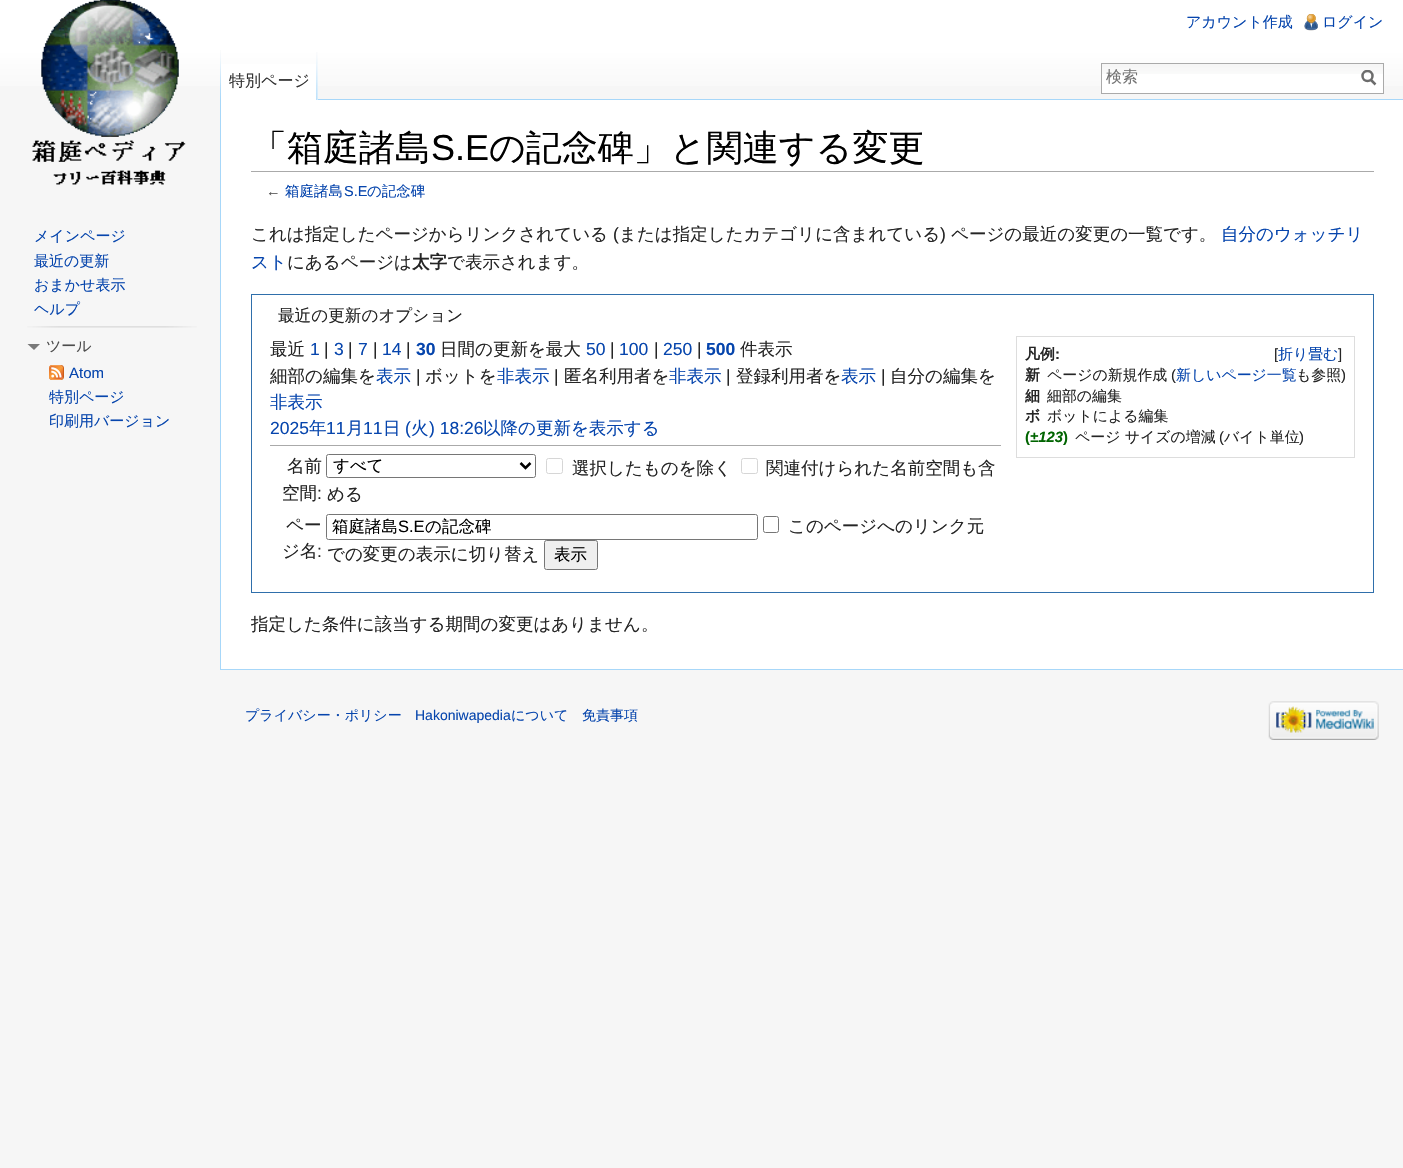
#include "include/core/SkBlurTypes.h"
#include "include/core/SkCanvas.h"
#include "include/core/SkData.h"
#include "include/core/SkFont.h"
#include "include/core/SkFontMgr.h"
#include "include/core/SkImage.h"
#include "include/core/SkMaskFilter.h"
#include "include/core/SkPaint.h"
#include "include/core/SkPathBuilder.h"
#include "include/core/SkTextBlob.h"
#include "include/effects/SkDashPathEffect.h"
#include "include/effects/SkGradientShader.h"
#include "include/utils/SkParsePath.h"

extern sk_sp<SkFontMgr> fontMgr;

void draw(SkCanvas* canvas) {
    SkPaint p;
    p.setAntiAlias(true);
    auto font = [&](const char* family, int weight, float size, bool italic = false) {
        SkFontStyle style(weight, SkFontStyle::kNormal_Width,
            italic ? SkFontStyle::kItalic_Slant : SkFontStyle::kUpright_Slant);
        SkFont result(fontMgr->matchFamilyStyle(family, style), size);
        result.setSubpixel(true);
        return result;
    };
    auto drawPhoto = [&](const char* path, float l, float t, float r, float b) {
        auto image = SkImages::DeferredFromEncodedData(SkData::MakeFromFileName(path));
        canvas->drawImageRect(image, SkRect::MakeLTRB(l, t, r, b), SkSamplingOptions());
    };
    canvas->clear(0xFFF6F6F6);
    {
        const SkColor colors[] = {0xFFFFFFFF, 0xFFF6F6F6};
        const float stops[] = {0.5f, 1};
        const SkPoint ends[] = {{702, 0}, {702, 100}};
        p.setShader(SkGradientShader::MakeLinear(ends, colors, stops, 2, SkTileMode::kClamp));
        p.setAlpha(255);
    }
    canvas->drawRect(SkRect::MakeLTRB(0, 0, 1403, 86), p);
    auto font1 = font("WenQuanYi Zen Hei", 500, 15);
    p.setShader(nullptr);
    p.setColor(0xFF0645AD);
    canvas->drawString("アカウント作成", 1186, 27, font1, p);
    drawPhoto("media/1.png", 1304, 14, 1318, 31);
    canvas->drawString("ログイン", 1322, 27, font1, p);
    drawPhoto("media/2.png", 220, 50, 221, 99);
    p.setColor(0xFFFFFFFF);
    canvas->drawRect(SkRect::MakeLTRB(221, 64, 318, 100), p);
    drawPhoto("media/3.png", 316, 52, 318, 100);
    auto font2 = font("WenQuanYi Zen Hei", 500, 16);
    p.setColor(0xFF333333);
    canvas->drawString("特別ページ", 229, 86, font2, p);
    p.setColor(0xFFFFFFFF);
    canvas->drawRect(SkRect::MakeLTRB(1102, 74, 1383, 93), p);
    drawPhoto("media/4.png", 1102, 64, 1383, 74);
    p.setStyle(SkPaint::kStroke_Style);
    p.setStrokeWidth(1);
    p.setColor(0xFFAAAAAA);
    canvas->drawRect(SkRect::MakeLTRB(1101.5f, 63.5f, 1383.5f, 93.5f), p);
    p.setStyle(SkPaint::kFill_Style);
    p.setColor(0xFF757575);
    canvas->drawString("検索", 1106, 82, font2, p);
    p.setStyle(SkPaint::kStroke_Style);
    p.setStrokeWidth(2.5f);
    p.setColor(0xFF6C6C6C);
    canvas->drawPath(SkPathBuilder().moveTo(1375.5f, 84.5f).lineTo(1370.5f, 79.5f).detach(), p);
    canvas->save();
    canvas->clipRect(SkRect::MakeLTRB(1361, 70, 1376, 86));
    canvas->drawCircle(1367.5f, 76, 5, p);
    canvas->restore();
    drawPhoto("media/5.png", 32, 0, 186, 185);
    p.setStyle(SkPaint::kFill_Style);
    p.setColor(0xFF0645AD);
    {
        const struct { const char* s; float x, y; } items[] = {
            {"メインページ", 34, 241},
            {"最近の更新", 34, 266},
            {"おまかせ表示", 34, 290},
            {"ヘルプ", 34, 314},
        };
        for (auto [s, x, y] : items) {
            canvas->drawString(s, x, y, font1, p);
        }
    }
    drawPhoto("media/6.png", 27, 326, 197, 328);
    p.setColor(0xFF797979);
    canvas->drawPath(SkPathBuilder().moveTo(40, 344).lineTo(34, 350).lineTo(27.5f, 344).close().detach(), p);
    p.setColor(0xFF4D4D4D);
    canvas->drawString("ツール", 46, 351, font1, p);
    drawPhoto("media/7.png", 49, 365, 64, 380);
    auto font3 = font("Liberation Sans", 400, 15);
    p.setColor(0xFF0645AD);
    canvas->drawString("Atom", 69, 378, font3, p);
    canvas->drawString("特別ページ", 49, 402, font1, p);
    canvas->drawString("印刷用バージョン", 49, 426, font1, p);
    {
        const struct { float l, t, r, b; SkColor color; } items[] = {
            {221, 100, 1403, 669, 0xFFFFFFFF},
            {318, 99, 1403, 100, 0xFFA7D7F9},
            {220, 669, 1403, 670, 0xFFA7D7F9},
            {220, 99, 221, 670, 0xFFA7D7F9},
            {251, 171, 1374, 172, 0xFFAAAAAA},
        };
        for (auto [l, t, r, b, color] : items) {
            p.setColor(color);
            canvas->drawRect(SkRect::MakeLTRB(l, t, r, b), p);
        }
    }
    auto font4 = font("WenQuanYi Zen Hei", 500, 36);
    p.setColor(0xFF000000);
    canvas->drawString("「箱庭諸島", 251, 160, font4, p);
    auto font5 = font("Liberation Sans", 400, 36);
    canvas->drawString("S.E", 431, 160, font5, p);
    canvas->drawString("の記念碑」と関連する変更", 489, 160, font4, p);
    auto font6 = font("Liberation Sans", 400, 14.5f);
    p.setColor(0xFF545454);
    canvas->drawString("←", 266, 196, font6, p);
    auto font7 = font("WenQuanYi Zen Hei", 500, 14.5f);
    p.setColor(0xFF0645AD);
    canvas->drawString("箱庭諸島", 285, 196, font7, p);
    canvas->drawString("S.E", 344, 196, font6, p);
    canvas->drawString("の記念碑", 367, 196, font7, p);
    auto font8 = font("WenQuanYi Zen Hei", 500, 17.5f);
    p.setColor(0xFF252525);
    canvas->drawString("これは指定したページからリンクされている", 251, 240, font8, p);
    auto font9 = font("Liberation Sans", 400, 17.5f);
    canvas->drawString("(", 613, 240, font9, p);
    canvas->drawString("または指定したカテゴリに含まれている", 619, 240, font8, p);
    canvas->drawString(")", 940, 240, font9, p);
    canvas->drawString("ページの最近の変更の一覧です。", 951, 240, font8, p);
    p.setColor(0xFF0645AD);
    canvas->drawString("自分のウォッチリ", 1221, 240, font8, p);
    canvas->drawString("スト", 251, 268, font8, p);
    p.setColor(0xFF252525);
    canvas->drawString("にあるページは", 287, 268, font8, p);
    auto font10 = font("WenQuanYi Zen Hei", 700, 17.5f);
    canvas->drawString("太字", 412, 268, font10, p);
    canvas->drawString("で表示されます。", 447, 268, font8, p);
    p.setStyle(SkPaint::kStroke_Style);
    p.setStrokeWidth(1);
    p.setColor(0xFF2F6FAB);
    canvas->drawRect(SkRect::MakeLTRB(251.5f, 294.5f, 1373.5f, 592.5f), p);
    auto font11 = font("WenQuanYi Zen Hei", 500, 16.6f);
    p.setStyle(SkPaint::kFill_Style);
    p.setColor(0xFF252525);
    canvas->drawString("最近の更新のオプション", 278, 321, font11, p);
    canvas->drawString("最近", 270, 355, font8, p);
    p.setColor(0xFF0645AD);
    canvas->drawString("1", 310, 355, font9, p);
    p.setColor(0xFF252525);
    canvas->drawString("|", 324, 355, font9, p);
    p.setColor(0xFF0645AD);
    canvas->drawString("3", 334, 355, font9, p);
    p.setColor(0xFF252525);
    canvas->drawString("|", 348, 355, font9, p);
    p.setColor(0xFF0645AD);
    canvas->drawString("7", 358, 355, font9, p);
    p.setColor(0xFF252525);
    canvas->drawString("|", 373, 355, font9, p);
    p.setColor(0xFF0645AD);
    canvas->drawString("14", 382, 355, font9, p);
    p.setColor(0xFF252525);
    canvas->drawString("|", 406, 355, font9, p);
    auto font12 = font("Liberation Sans", 700, 17.5f);
    p.setColor(0xFF0645AD);
    canvas->drawString("30", 416, 355, font12, p);
    p.setColor(0xFF252525);
    canvas->drawString("日間の更新を最大", 440, 355, font8, p);
    p.setColor(0xFF0645AD);
    canvas->drawString("50", 586, 355, font9, p);
    p.setColor(0xFF252525);
    canvas->drawString("|", 610, 355, font9, p);
    p.setColor(0xFF0645AD);
    canvas->drawString("100", 619, 355, font9, p);
    p.setColor(0xFF252525);
    canvas->drawString("|", 654, 355, font9, p);
    p.setColor(0xFF0645AD);
    canvas->drawString("250", 663, 355, font9, p);
    p.setColor(0xFF252525);
    canvas->drawString("|", 697, 355, font9, p);
    p.setColor(0xFF0645AD);
    canvas->drawString("500", 706, 355, font12, p);
    p.setColor(0xFF252525);
    canvas->drawString("件表示", 740, 355, font8, p);
    p.setStyle(SkPaint::kStroke_Style);
    p.setColor(0xFFDDDDDD);
    canvas->drawRect(SkRect::MakeLTRB(1016.5f, 336.5f, 1354.5f, 457.5f), p);
    auto font13 = font("WenQuanYi Zen Hei", 700, 14.9f);
    p.setStyle(SkPaint::kFill_Style);
    p.setColor(0xFF252525);
    canvas->drawString("凡例", 1025, 359, font13, p);
    auto font14 = font("Liberation Sans", 700, 14.9f);
    canvas->drawString(":", 1055, 359, font14, p);
    auto font15 = font("Liberation Sans", 400, 14.9f);
    canvas->drawString("[", 1274, 359, font15, p);
    auto font16 = font("WenQuanYi Zen Hei", 500, 14.9f);
    p.setColor(0xFF0645AD);
    canvas->drawString("折り畳む", 1278, 359, font16, p);
    p.setColor(0xFF252525);
    canvas->drawString("]", 1338, 359, font15, p);
    canvas->drawString("新", 1025, 380, font13, p);
    canvas->drawString("ページの新規作成", 1047, 380, font16, p);
    canvas->drawString("(", 1171, 380, font15, p);
    p.setColor(0xFF0645AD);
    canvas->drawString("新しいページ一覧", 1176, 380, font16, p);
    p.setColor(0xFF252525);
    canvas->drawString("も参照", 1296, 380, font16, p);
    canvas->drawString(")", 1341, 380, font15, p);
    canvas->drawString("細", 1025, 401, font13, p);
    canvas->drawString("細部の編集", 1047, 401, font16, p);
    canvas->drawString("ボ", 1025, 421, font13, p);
    canvas->drawString("ボットによる編集", 1047, 421, font16, p);
    p.setColor(0xFF006400);
    canvas->drawString("(", 1025, 442, font14, p);
    auto font17 = font("Liberation Sans", 700, 14.9f, true);
    canvas->drawString("±123", 1030, 442, font17, p);
    canvas->drawString(")", 1063, 442, font14, p);
    p.setColor(0xFF252525);
    canvas->drawString("ページ サイズの増減", 1075, 442, font16, p);
    canvas->drawString("(", 1219, 442, font15, p);
    canvas->drawString("バイト単位", 1224, 442, font16, p);
    canvas->drawString(")", 1299, 442, font15, p);
    canvas->drawString("細部の編集を", 270, 382, font8, p);
    p.setColor(0xFF0645AD);
    canvas->drawString("表示", 376, 382, font8, p);
    p.setColor(0xFF252525);
    canvas->drawString("|", 416, 382, font9, p);
    canvas->drawString("ボットを", 425, 382, font8, p);
    p.setColor(0xFF0645AD);
    canvas->drawString("非表示", 497, 382, font8, p);
    p.setColor(0xFF252525);
    canvas->drawString("|", 554, 382, font9, p);
    canvas->drawString("匿名利用者を", 564, 382, font8, p);
    p.setColor(0xFF0645AD);
    canvas->drawString("非表示", 669, 382, font8, p);
    p.setColor(0xFF252525);
    canvas->drawString("|", 726, 382, font9, p);
    canvas->drawString("登録利用者を", 736, 382, font8, p);
    p.setColor(0xFF0645AD);
    canvas->drawString("表示", 841, 382, font8, p);
    p.setColor(0xFF252525);
    canvas->drawString("|", 881, 382, font9, p);
    canvas->drawString("自分の編集を", 890, 382, font8, p);
    p.setColor(0xFF0645AD);
    canvas->drawString("非表示", 270, 408, font8, p);
    canvas->drawString("2025", 270, 434, font9, p);
    canvas->drawString("年", 309, 434, font8, p);
    canvas->drawString("11", 326, 434, font9, p);
    canvas->drawString("月", 346, 434, font8, p);
    canvas->drawString("11", 363, 434, font9, p);
    canvas->drawString("日", 383, 434, font8, p);
    canvas->drawString("(", 405, 434, font9, p);
    canvas->drawString("火", 411, 434, font8, p);
    canvas->drawString(") 18:26", 429, 434, font9, p);
    canvas->drawString("以降の更新を表示する", 483, 434, font8, p);
    p.setColor(0xFFAAAAAA);
    canvas->drawRect(SkRect::MakeLTRB(270, 445, 1001, 446), p);
    p.setColor(0xFF252525);
    canvas->drawString("名前", 287, 472, font8, p);
    canvas->drawString("空間", 282, 499, font8, p);
    canvas->drawString(":", 317, 499, font9, p);
    p.setStyle(SkPaint::kStroke_Style);
    p.setColor(0xFF767676);
    canvas->drawRoundRect(SkRect::MakeLTRB(326.5f, 454.5f, 535.5f, 477.5f), 2, 2, p);
    p.setStrokeWidth(2.5f);
    p.setColor(0xFF000000);
    canvas->drawPath(SkPathBuilder().moveTo(520.5f, 463).lineTo(525.5f, 468).lineTo(530.5f, 463).detach(), p);
    auto font18 = font("WenQuanYi Zen Hei", 500, 16.5f);
    p.setStyle(SkPaint::kFill_Style);
    canvas->drawString("すべて", 333, 471, font18, p);
    p.setStyle(SkPaint::kStroke_Style);
    p.setStrokeWidth(1);
    p.setColor(0xFFD6D6D6);
    canvas->drawRoundRect(SkRect::MakeLTRB(546.5f, 458.5f, 562.5f, 473.5f), 2, 2, p);
    p.setStyle(SkPaint::kFill_Style);
    p.setColor(0xFF252525);
    canvas->drawString("選択したものを除く", 572, 474, font8, p);
    p.setStyle(SkPaint::kStroke_Style);
    p.setColor(0xFFD6D6D6);
    canvas->drawRoundRect(SkRect::MakeLTRB(741.5f, 458.5f, 757.5f, 473.5f), 2, 2, p);
    p.setStyle(SkPaint::kFill_Style);
    p.setColor(0xFF252525);
    {
        const struct { const char* s; float x, y; } items[] = {
            {"関連付けられた名前空間も含", 766, 474},
            {"める", 327, 500},
            {"ペー", 286, 531},
            {"ジ名", 282, 557},
        };
        for (auto [s, x, y] : items) {
            canvas->drawString(s, x, y, font8, p);
        }
    }
    canvas->drawString(":", 317, 557, font9, p);
    p.setStyle(SkPaint::kStroke_Style);
    p.setColor(0xFF767676);
    canvas->drawRoundRect(SkRect::MakeLTRB(326.5f, 514.5f, 757.5f, 539.5f), 2, 2, p);
    p.setStyle(SkPaint::kFill_Style);
    p.setColor(0xFF000000);
    canvas->drawString("箱庭諸島", 332, 532, font18, p);
    auto font19 = font("Liberation Sans", 400, 16.5f);
    canvas->drawString("S.E", 398, 532, font19, p);
    canvas->drawString("の記念碑", 425, 532, font18, p);
    p.setStyle(SkPaint::kStroke_Style);
    p.setColor(0xFF767676);
    canvas->drawRoundRect(SkRect::MakeLTRB(763.5f, 516.5f, 778.5f, 532.5f), 2, 2, p);
    p.setStyle(SkPaint::kFill_Style);
    p.setColor(0xFF252525);
    canvas->drawString("このページへのリンク元", 788, 532, font8, p);
    canvas->drawString("での変更の表示に切り替え", 327, 560, font8, p);
    p.setColor(0xFFEFEFEF);
    canvas->drawRoundRect(SkRect::MakeLTRB(544.5f, 540.5f, 597.5f, 569.5f), 2, 2, p);
    p.setStyle(SkPaint::kStroke_Style);
    p.setColor(0xFF767676);
    canvas->drawRoundRect(SkRect::MakeLTRB(544.5f, 540.5f, 597.5f, 569.5f), 2, 2, p);
    p.setStyle(SkPaint::kFill_Style);
    p.setColor(0xFF000000);
    canvas->drawString("表示", 554, 560, font18, p);
    p.setColor(0xFF252525);
    canvas->drawString("指定した条件に該当する期間の変更はありません。", 251, 630, font8, p);
    auto font20 = font("WenQuanYi Zen Hei", 500, 14);
    p.setColor(0xFF0645AD);
    canvas->drawString("プライバシー・ポリシー", 245, 720, font20, p);
    auto font21 = font("Liberation Sans", 400, 14);
    canvas->drawString("Hakoniwapedia", 415, 720, font21, p);
    canvas->drawString("について", 511, 720, font20, p);
    canvas->drawString("免責事項", 582, 720, font20, p);
    drawPhoto("media/8.png", 1268, 701, 1379, 740);
}
